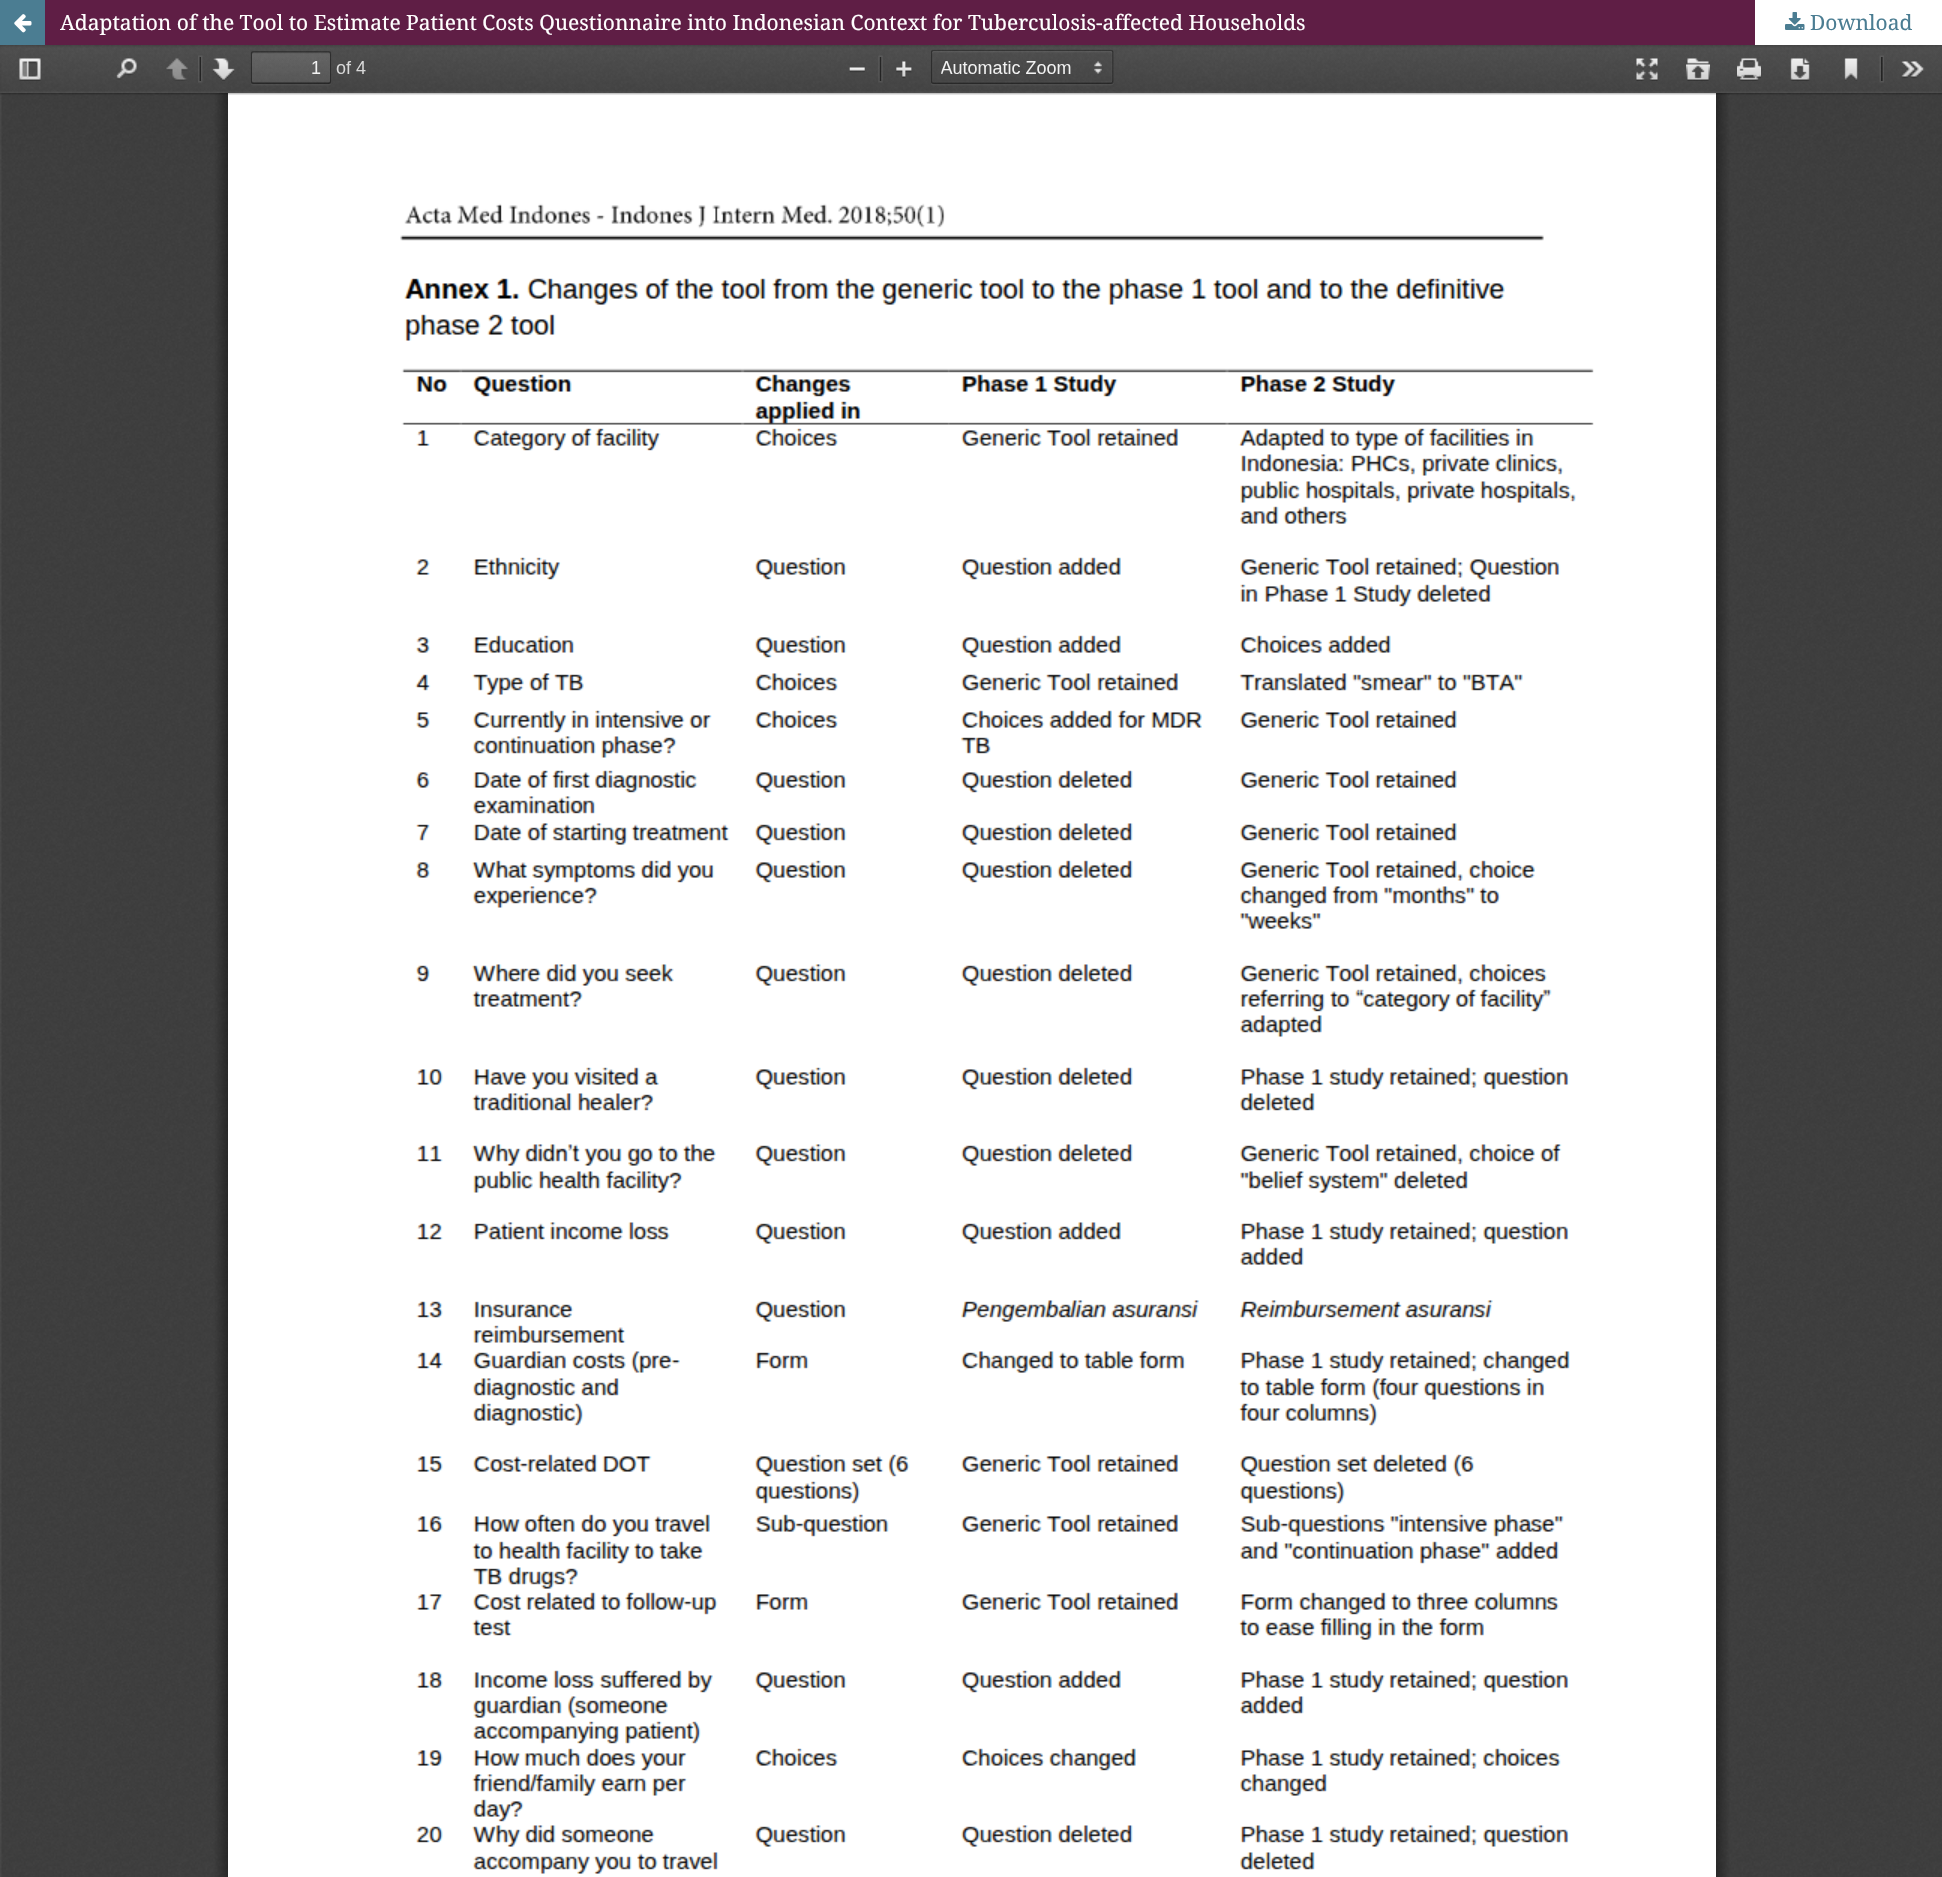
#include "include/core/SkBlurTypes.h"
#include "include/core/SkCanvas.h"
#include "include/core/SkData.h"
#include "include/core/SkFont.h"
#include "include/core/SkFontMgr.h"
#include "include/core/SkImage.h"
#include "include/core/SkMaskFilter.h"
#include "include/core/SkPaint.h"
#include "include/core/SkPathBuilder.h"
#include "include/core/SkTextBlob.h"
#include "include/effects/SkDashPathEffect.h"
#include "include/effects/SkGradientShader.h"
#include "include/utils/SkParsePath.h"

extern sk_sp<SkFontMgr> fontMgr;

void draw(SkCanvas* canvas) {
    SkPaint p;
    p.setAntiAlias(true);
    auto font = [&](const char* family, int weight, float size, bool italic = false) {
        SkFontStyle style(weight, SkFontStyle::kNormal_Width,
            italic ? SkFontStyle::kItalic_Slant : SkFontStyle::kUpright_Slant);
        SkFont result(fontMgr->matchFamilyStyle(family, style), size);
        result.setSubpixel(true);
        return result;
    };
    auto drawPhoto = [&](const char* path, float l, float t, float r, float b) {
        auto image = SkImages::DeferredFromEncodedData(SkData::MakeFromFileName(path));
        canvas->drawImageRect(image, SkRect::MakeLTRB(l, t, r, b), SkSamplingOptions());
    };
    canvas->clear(0xFFFFFFFF);
    p.setColor(0xFF5F1E45);
    canvas->drawRect(SkRect::MakeLTRB(45, 0, 1755, 45), p);
    p.setColor(0xFF4B7D92);
    canvas->drawRect(SkRect::MakeLTRB(0, 0, 45, 45), p);
    drawPhoto("media/1.png", 14, 14, 32, 33);
    auto font1 = font("Noto Serif", 400, 21);
    p.setColor(0xFFFFFFFF);
    canvas->drawString("Adaptation of the Tool to Estimate Patient Costs Questionnaire into Indonesian Context for Tuberculosis-affected Households", 60, 30, font1, p);
    drawPhoto("media/2.png", 1785, 12, 1805, 30);
    p.setColor(0xFF4B7D92);
    canvas->drawString("Download", 1810, 30, font1, p);
    drawPhoto("media/3.png", 0, 45, 1942, 1877);
}
